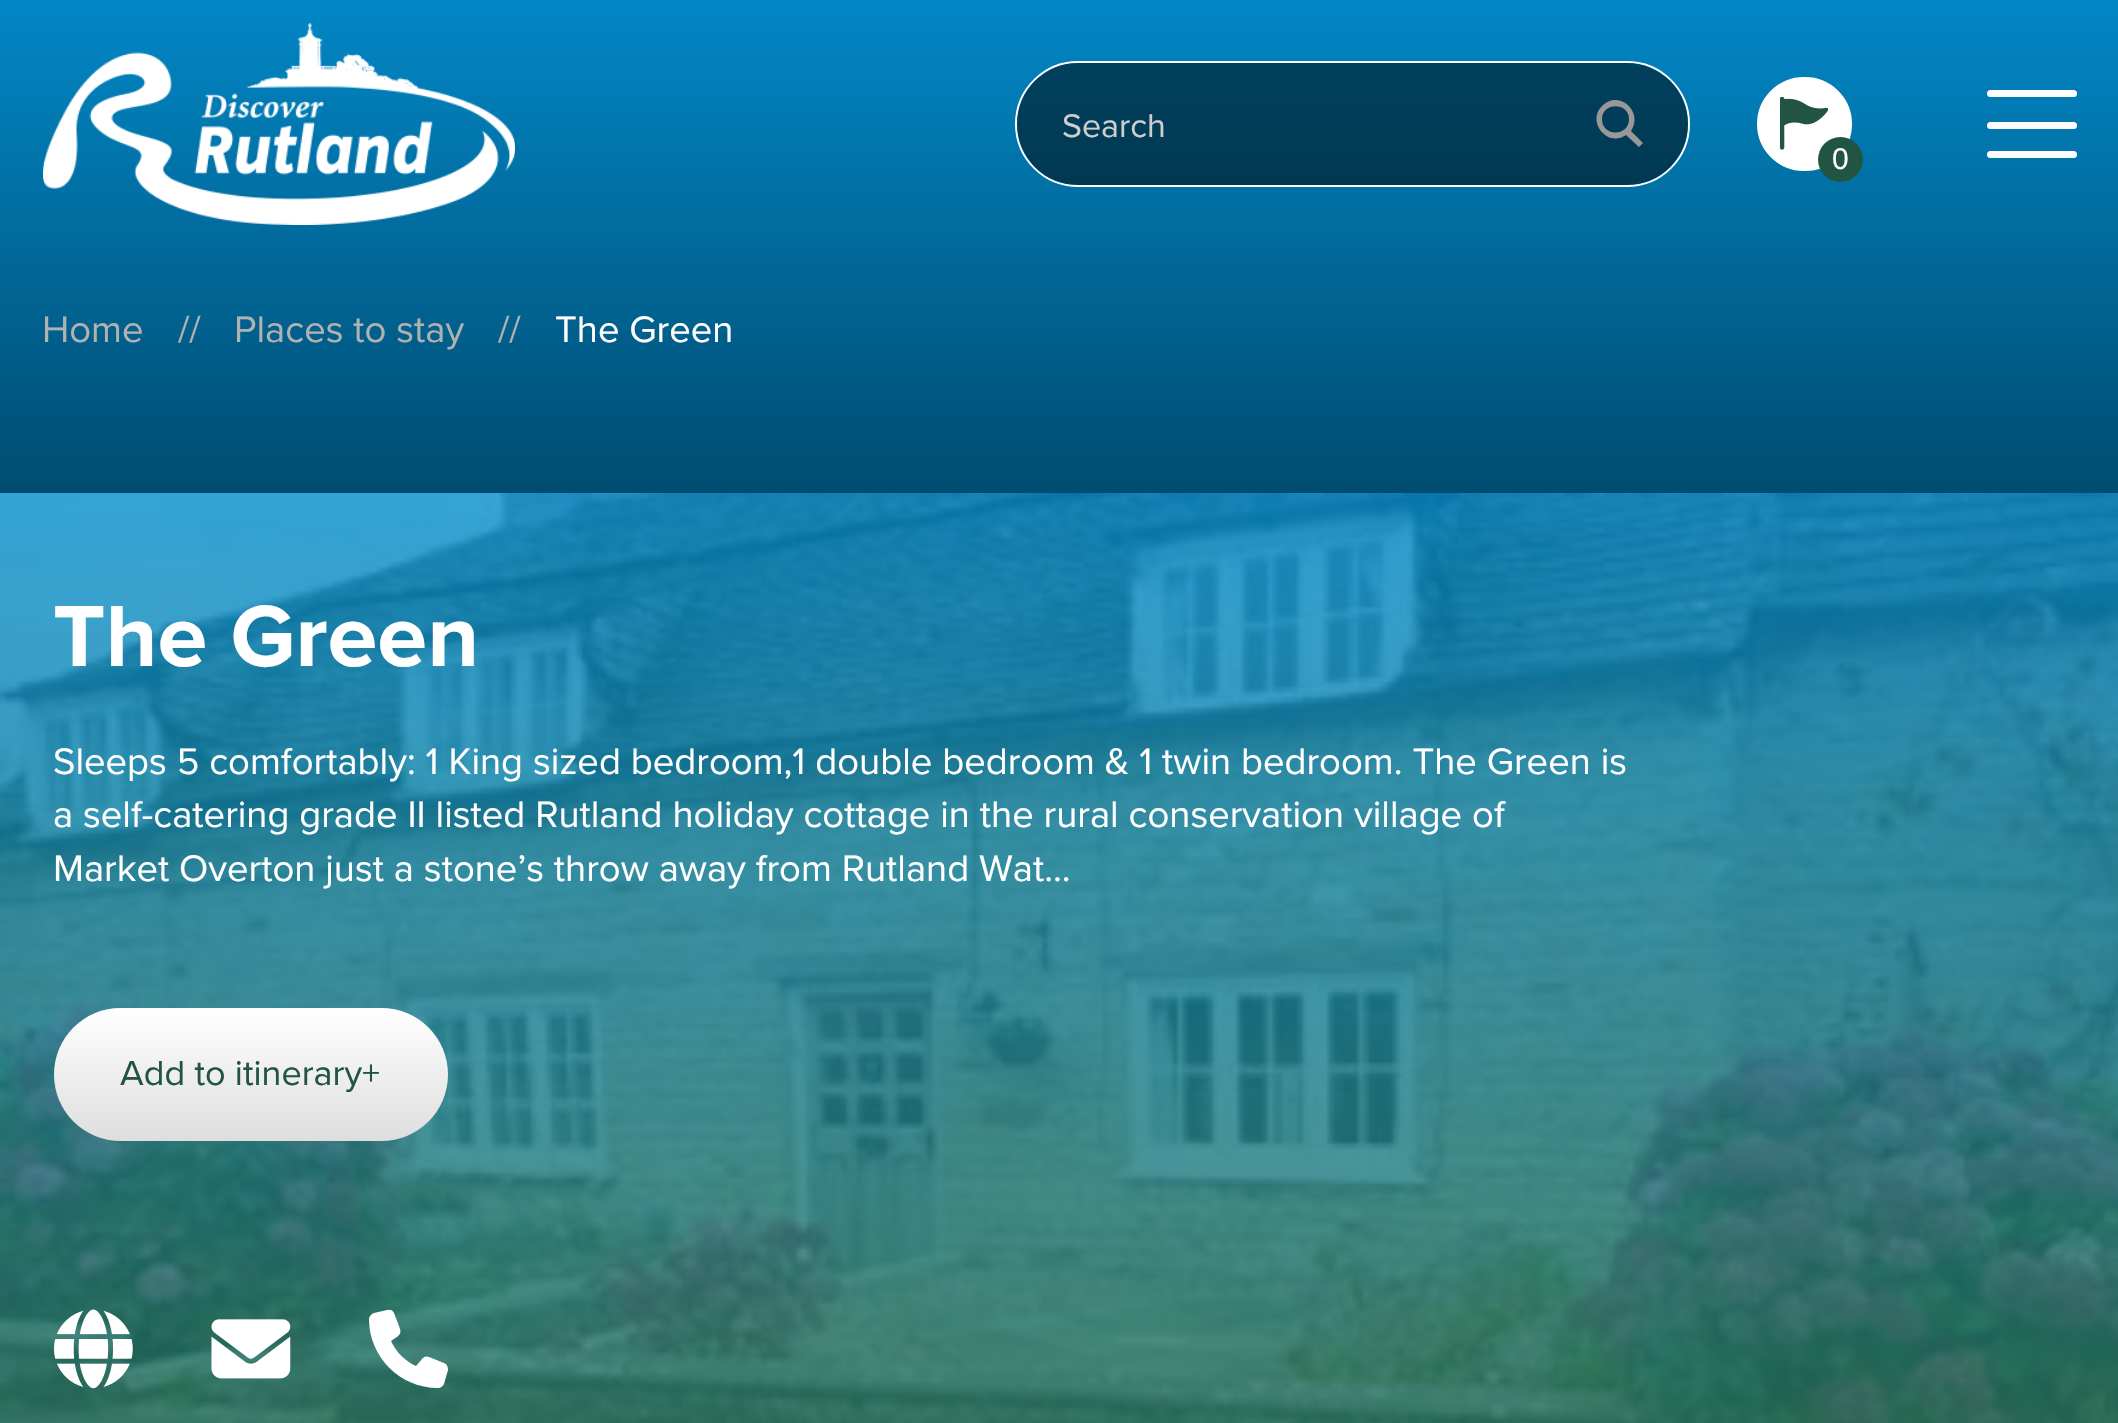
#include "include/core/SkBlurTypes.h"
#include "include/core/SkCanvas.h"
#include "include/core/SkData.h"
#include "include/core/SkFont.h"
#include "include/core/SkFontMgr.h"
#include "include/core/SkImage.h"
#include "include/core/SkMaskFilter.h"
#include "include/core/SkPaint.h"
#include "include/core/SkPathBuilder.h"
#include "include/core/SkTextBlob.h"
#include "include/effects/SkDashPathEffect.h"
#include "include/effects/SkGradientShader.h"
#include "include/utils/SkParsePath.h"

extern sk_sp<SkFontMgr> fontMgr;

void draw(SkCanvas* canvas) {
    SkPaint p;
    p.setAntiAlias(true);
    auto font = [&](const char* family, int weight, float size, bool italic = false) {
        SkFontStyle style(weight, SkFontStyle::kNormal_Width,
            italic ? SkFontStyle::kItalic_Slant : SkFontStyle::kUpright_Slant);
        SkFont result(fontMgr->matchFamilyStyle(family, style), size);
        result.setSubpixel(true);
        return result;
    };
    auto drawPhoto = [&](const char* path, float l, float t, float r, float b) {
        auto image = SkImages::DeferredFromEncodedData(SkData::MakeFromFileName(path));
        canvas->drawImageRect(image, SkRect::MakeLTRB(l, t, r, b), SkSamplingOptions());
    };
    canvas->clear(0xFFFFFFFF);
    {
        const SkColor colors[] = {0xFF0287C6, 0xFF004C70};
        const float stops[] = {0, 1};
        const SkPoint ends[] = {{1060, 0}, {1060, 493}};
        p.setShader(SkGradientShader::MakeLinear(ends, colors, stops, 2, SkTileMode::kClamp));
        p.setAlpha(255);
    }
    canvas->drawRect(SkRect::MakeLTRB(0, 0, 2118, 493), p);
    drawPhoto("media/1.png", 43, 23, 515, 225);
    p.setStyle(SkPaint::kStroke_Style);
    p.setStrokeWidth(2);
    p.setShader(nullptr);
    p.setColor(0xFFFFFFFF);
    canvas->drawRoundRect(SkRect::MakeLTRB(1016, 62, 1689, 186), 62, 62, p);
    p.setStyle(SkPaint::kFill_Style);
    p.setColor(0x80000000);
    canvas->drawRoundRect(SkRect::MakeLTRB(1017, 63, 1688, 185), 61, 61, p);
    auto font1 = font("Proxima Nova", 400, 34);
    p.setColor(0xFFCECECE);
    canvas->drawString("Search", 1062, 137, font1, p);
    p.setColor(0xFF989898);
    canvas->drawPath(SkPathBuilder().moveTo(1643, 143).lineTo(1631, 131).cubicTo(1644, 112, 1619, 89, 1602, 106).cubicTo(1586, 122, 1608, 148, 1626, 135).lineTo(1639, 147).close().moveTo(1602, 119).cubicTo(1602, 102, 1629, 102, 1629, 119).cubicTo(1629, 137, 1602, 137, 1602, 119).close().detach(), p);
    p.setColor(0xFFFFFFFF);
    canvas->drawRoundRect(SkRect::MakeLTRB(1987, 90, 2077, 97), 3.5f, 3.5f, p);
    canvas->drawRoundRect(SkRect::MakeLTRB(1987, 122, 2077, 129), 3.5f, 3.5f, p);
    canvas->drawRoundRect(SkRect::MakeLTRB(1987, 151, 2077, 158), 3.5f, 3.5f, p);
    canvas->drawRoundRect(SkRect::MakeLTRB(1758, 78, 1851, 170), 46, 46, p);
    p.setStyle(SkPaint::kStroke_Style);
    canvas->drawRoundRect(SkRect::MakeLTRB(1758, 78, 1851, 170), 46, 46, p);
    drawPhoto("media/2.png", 1780, 97, 1828, 150);
    p.setStyle(SkPaint::kFill_Style);
    p.setColor(0xFF225541);
    canvas->drawCircle(1840.5f, 159.5f, 22.5f, p);
    auto font2 = font("Liberation Sans", 400, 30);
    p.setColor(0xFFFFFFFF);
    canvas->drawString("0", 1832, 169, font2, p);
    auto font3 = font("Proxima Nova", 400, 38.25f);
    p.setColor(0xFFB1B1B1);
    {
        const struct { const char* s; float x, y; } items[] = {
            {"Home", 42, 342},
            {"//", 178, 342},
            {"Places to stay", 234, 342},
            {"//", 498, 342},
        };
        for (auto [s, x, y] : items) {
            canvas->drawString(s, x, y, font3, p);
        }
    }
    p.setColor(0xFFFFFFFF);
    canvas->drawString("The Green", 555, 342, font3, p);
    drawPhoto("media/3.png", 0, 493, 2118, 1423);
    auto font4 = font("Proxima Nova", 700, 90);
    canvas->drawString("The Green", 53, 666, font4, p);
    {
        const struct { const char* s; float x, y; } items[] = {
            {"Sleeps 5 comfortably: 1 King sized bedroom,1 double bedroom & 1 twin bedroom. The Green is", 53, 774},
            {"a self-catering grade II listed Rutland holiday cottage in the rural conservation village of", 53, 827},
            {"Market Overton just a stone’s throw away from Rutland Wat...", 53, 881},
        };
        for (auto [s, x, y] : items) {
            canvas->drawString(s, x, y, font3, p);
        }
    }
    {
        const SkColor colors[] = {0xFFFFFFFF, 0xFFDEDEDE};
        const float stops[] = {0, 1};
        const SkPoint ends[] = {{251, 1008}, {251, 1141}};
        p.setShader(SkGradientShader::MakeLinear(ends, colors, stops, 2, SkTileMode::kClamp));
        p.setAlpha(255);
    }
    canvas->drawRoundRect(SkRect::MakeLTRB(54, 1008, 448, 1141), 66.5f, 66.5f, p);
    auto font5 = font("Proxima Nova", 400, 36);
    p.setShader(nullptr);
    p.setColor(0xFF225541);
    canvas->drawString("Add to itinerary+", 120, 1085, font5, p);
    drawPhoto("media/4.png", 54, 1309, 133, 1389);
    drawPhoto("media/5.png", 211, 1319, 291, 1379);
    p.setColor(0xFFFFFFFF);
    canvas->drawPath(SkPathBuilder().moveTo(394, 1313).cubicTo(393, 1310, 390, 1309, 387, 1310).lineTo(374, 1313).cubicTo(371, 1314, 369, 1317, 369, 1319).cubicTo(369, 1357, 400, 1388, 438, 1388).cubicTo(441, 1388, 443, 1386, 444, 1384).lineTo(448, 1370).cubicTo(448, 1367, 447, 1364, 444, 1363).lineTo(429, 1357).cubicTo(427, 1356, 424, 1356, 422, 1359).lineTo(416, 1366).cubicTo(405, 1361, 396, 1352, 391, 1341).cubicTo(398, 1336, 403, 1335, 399, 1326).close().detach(), p);
}
